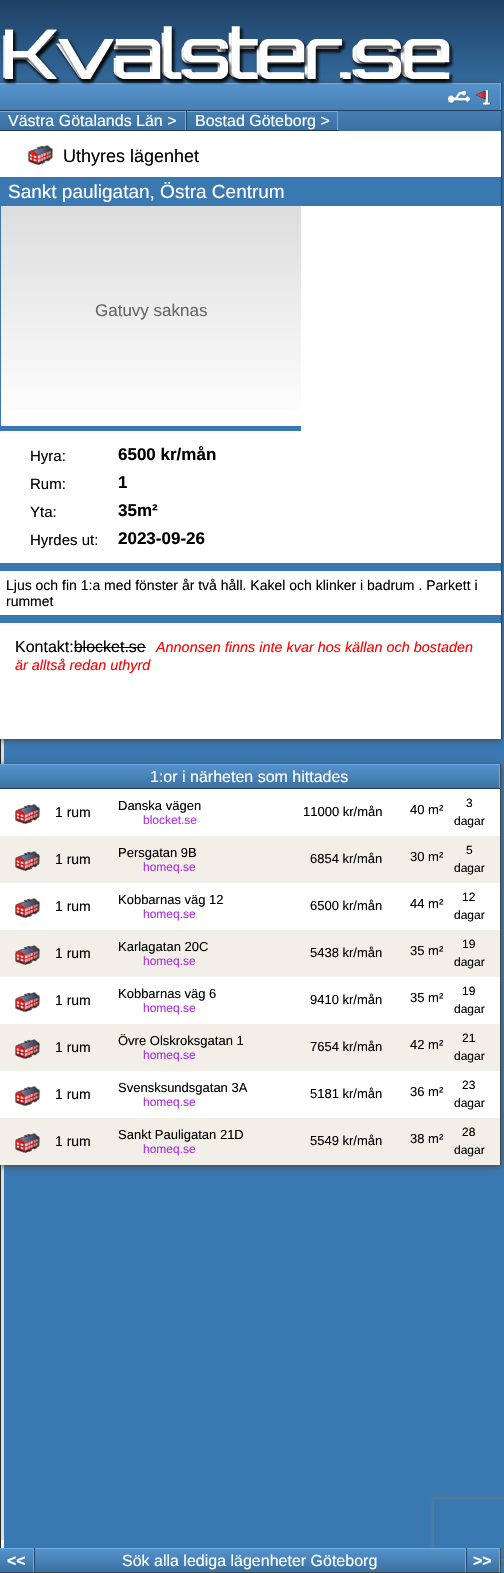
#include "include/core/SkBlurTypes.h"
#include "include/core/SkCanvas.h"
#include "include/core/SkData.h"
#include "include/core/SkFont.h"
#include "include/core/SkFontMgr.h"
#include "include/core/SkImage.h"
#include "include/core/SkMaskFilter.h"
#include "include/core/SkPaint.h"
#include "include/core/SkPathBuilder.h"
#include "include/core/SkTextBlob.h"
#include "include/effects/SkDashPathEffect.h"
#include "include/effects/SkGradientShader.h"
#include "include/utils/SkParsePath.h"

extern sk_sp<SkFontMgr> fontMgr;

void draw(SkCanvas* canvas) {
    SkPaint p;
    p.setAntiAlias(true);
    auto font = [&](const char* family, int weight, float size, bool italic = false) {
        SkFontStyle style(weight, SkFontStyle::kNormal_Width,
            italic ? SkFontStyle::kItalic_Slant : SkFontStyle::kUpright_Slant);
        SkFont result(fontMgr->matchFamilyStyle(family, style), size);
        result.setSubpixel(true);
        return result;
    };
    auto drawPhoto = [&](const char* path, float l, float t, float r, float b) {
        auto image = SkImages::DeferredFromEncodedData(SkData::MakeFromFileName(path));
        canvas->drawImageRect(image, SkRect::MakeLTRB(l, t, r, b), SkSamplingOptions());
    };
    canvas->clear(0xFF3978B0);
    {
        const SkColor colors[] = {0xFF1F4064, 0xFF3978B0};
        const float stops[] = {0, 1};
        const SkPoint ends[] = {{252, 0}, {252, 110}};
        p.setShader(SkGradientShader::MakeLinear(ends, colors, stops, 2, SkTileMode::kClamp));
        p.setAlpha(255);
    }
    canvas->drawRect(SkRect::MakeLTRB(0, 0, 504, 106), p);
    p.setShader(nullptr);
    {
        const struct { float l, t, r, b; SkColor color; } items[] = {
            {0, 739, 1, 1548, 0xFF282828},
            {1, 739, 4, 1540, 0xFFDDDDDD},
            {1, 1540, 4, 1548, 0xFFF5F5F5},
        };
        for (auto [l, t, r, b, color] : items) {
            p.setColor(color);
            canvas->drawRect(SkRect::MakeLTRB(l, t, r, b), p);
        }
    }
    p.setColor(0xFF444444);
    p.setMaskFilter(SkMaskFilter::MakeBlur(kNormal_SkBlurStyle, 3));
    canvas->drawRect(SkRect::MakeLTRB(-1, 84, 501, 740), p);
    p.setMaskFilter(nullptr);
    {
        const SkColor colors[] = {0xFF5694CC, 0xFF3A70A1};
        const float stops[] = {0, 1};
        const SkPoint ends[] = {{251, 83}, {251, 131}};
        p.setShader(SkGradientShader::MakeLinear(ends, colors, stops, 2, SkTileMode::kClamp));
        p.setAlpha(255);
    }
    canvas->drawRect(SkRect::MakeLTRB(0, 84, 501, 131), p);
    p.setShader(nullptr);
    p.setColor(0xFF6DADE6);
    canvas->drawRect(SkRect::MakeLTRB(0, 83, 501, 84), p);
    drawPhoto("media/1.png", 2, 26, 454, 85);
    {
        const struct { float l, t, r, b; SkColor color; } items[] = {
            {0, 131, 501, 739, 0xFFFFFFFF},
            {501, 83, 502, 739, 0xFF444444},
            {500, 83, 501, 111, 0xFF6DADE6},
            {0, 110, 501, 111, 0xFF1D3D5B},
        };
        for (auto [l, t, r, b, color] : items) {
            p.setColor(color);
            canvas->drawRect(SkRect::MakeLTRB(l, t, r, b), p);
        }
    }
    drawPhoto("media/2.png", 448, 91, 471, 104);
    drawPhoto("media/3.png", 476, 90, 491, 106);
    {
        const struct { float l, t, r, b; SkColor color; } items[] = {
            {0, 130, 338, 131, 0xFF1D3D5B},
            {0, 111, 186, 112, 0xFF6DADE6},
            {185, 111, 186, 130, 0xFF6DADE6},
        };
        for (auto [l, t, r, b, color] : items) {
            p.setColor(color);
            canvas->drawRect(SkRect::MakeLTRB(l, t, r, b), p);
        }
    }
    auto font1 = font("Liberation Sans", 400, 16);
    p.setColor(0xFFFFFFFF);
    canvas->drawString("Västra Götalands Län >", 8, 126, font1, p);
    {
        const struct { float l, t, r, b; SkColor color; } items[] = {
            {186, 111, 187, 131, 0xFF234A6E},
            {187, 111, 338, 112, 0xFF6DADE6},
            {337, 111, 338, 130, 0xFF6DADE6},
        };
        for (auto [l, t, r, b, color] : items) {
            p.setColor(color);
            canvas->drawRect(SkRect::MakeLTRB(l, t, r, b), p);
        }
    }
    p.setColor(0xFFFFFFFF);
    canvas->drawString("Bostad Göteborg >", 195, 126, font1, p);
    drawPhoto("media/4.png", 28, 145, 53, 165);
    auto font2 = font("Liberation Sans", 400, 18);
    p.setColor(0xFF000000);
    canvas->drawString("Uthyres lägenhet", 63, 162, font2, p);
    p.setColor(0xFF3978B0);
    canvas->drawRect(SkRect::MakeLTRB(0, 177, 501, 206), p);
    auto font3 = font("Liberation Sans", 400, 19);
    p.setColor(0xFFFFFFFF);
    canvas->drawString("Sankt pauligatan, Östra Centrum", 8, 198, font3, p);
    {
        const SkColor colors[] = {0xFFDDDDDD, 0xFFFFFFFF};
        const float stops[] = {0, 1};
        const SkPoint ends[] = {{151, 206}, {151, 426}};
        p.setShader(SkGradientShader::MakeLinear(ends, colors, stops, 2, SkTileMode::kClamp));
        p.setAlpha(255);
    }
    canvas->drawRect(SkRect::MakeLTRB(1, 206, 301, 410), p);
    p.setShader(nullptr);
    p.setColor(0xFF3978B0);
    canvas->drawRect(SkRect::MakeLTRB(0, 426, 301, 431), p);
    canvas->drawRect(SkRect::MakeLTRB(0, 206, 1, 431), p);
    auto font4 = font("Liberation Sans", 400, 17);
    p.setColor(0xFF666666);
    canvas->drawString("Gatuvy saknas", 95, 316, font4, p);
    auto font5 = font("Liberation Sans", 400, 15);
    p.setColor(0xFF000000);
    canvas->drawString("Hyra:", 30, 461, font5, p);
    auto font6 = font("Liberation Sans", 700, 17);
    canvas->drawString("6500 kr/mån", 118, 460, font6, p);
    canvas->drawString("Rum:", 30, 489, font5, p);
    canvas->drawString("1", 118, 488, font6, p);
    canvas->drawString("Yta:", 30, 517, font5, p);
    canvas->drawString("35m²", 118, 516, font6, p);
    canvas->drawString("Hyrdes ut:", 30, 545, font5, p);
    canvas->drawString("2023-09-26", 118, 544, font6, p);
    p.setColor(0xFF3978B0);
    canvas->drawRect(SkRect::MakeLTRB(0, 563, 501, 571), p);
    canvas->drawRect(SkRect::MakeLTRB(0, 615, 501, 623), p);
    auto font7 = font("Liberation Sans", 400, 14);
    p.setColor(0xFF000000);
    canvas->drawString("Ljus och fin 1:a med fönster år två håll. Kakel och klinker i badrum . Parkett i", 6, 590, font7, p);
    canvas->drawString("rummet", 6, 606, font7, p);
    canvas->drawString("Kontakt:blocket.se", 15, 652, font1, p);
    auto font8 = font("Liberation Sans", 400, 14.4f, true);
    p.setColor(0xFFFF0000);
    canvas->drawString("Annonsen finns inte kvar hos källan och bostaden", 156, 652, font8, p);
    p.setColor(0xFF000000);
    canvas->drawRect(SkRect::MakeLTRB(74, 647, 146, 648), p);
    p.setColor(0xFFFF0000);
    canvas->drawString("är alltså redan uthyrd", 15, 670, font8, p);
    p.setColor(0xFF444444);
    p.setMaskFilter(SkMaskFilter::MakeBlur(kNormal_SkBlurStyle, 3));
    canvas->drawRect(SkRect::MakeLTRB(-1, 765, 500, 1166), p);
    p.setMaskFilter(nullptr);
    p.setColor(0xFFFFFFFF);
    canvas->drawRect(SkRect::MakeLTRB(0, 789, 500, 1118), p);
    p.setColor(0xFF444444);
    canvas->drawRect(SkRect::MakeLTRB(500, 764, 501, 1165), p);
    {
        const SkColor colors[] = {0xFF5694CC, 0xFF3A70A1};
        const float stops[] = {0, 1};
        const SkPoint ends[] = {{250, 764}, {250, 789}};
        p.setShader(SkGradientShader::MakeLinear(ends, colors, stops, 2, SkTileMode::kClamp));
        p.setAlpha(255);
    }
    canvas->drawRect(SkRect::MakeLTRB(0, 765, 499, 788), p);
    p.setShader(nullptr);
    {
        const struct { float l, t, r, b; SkColor color; } items[] = {
            {0, 764, 500, 765, 0xFF6DADE6},
            {499, 764, 500, 789, 0xFF6DADE6},
            {0, 788, 500, 789, 0xFF1D3D5B},
        };
        for (auto [l, t, r, b, color] : items) {
            p.setColor(color);
            canvas->drawRect(SkRect::MakeLTRB(l, t, r, b), p);
        }
    }
    p.setColor(0xFFFFFFFF);
    canvas->drawString("1:or i närheten som hittades", 150, 782, font1, p);
    drawPhoto("media/4.png", 15, 804, 40, 824);
    p.setColor(0xFF000000);
    canvas->drawString("1 rum", 55, 817, font7, p);
    auto font9 = font("Liberation Sans", 400, 13);
    canvas->drawString("Danska vägen", 118, 810, font9, p);
    auto font10 = font("Liberation Sans", 400, 12);
    p.setColor(0xFFAD2BE8);
    canvas->drawString("blocket.se", 143, 824, font10, p);
    p.setColor(0xFF000000);
    canvas->drawString("11000 kr/mån", 303, 816, font9, p);
    canvas->drawString("40 m²", 410, 814, font9, p);
    canvas->drawString("3", 466, 807, font10, p);
    canvas->drawString("dagar", 454, 825, font10, p);
    p.setColor(0xFFF2EFE9);
    canvas->drawRect(SkRect::MakeLTRB(0, 836, 500, 883), p);
    drawPhoto("media/5.png", 15, 851, 40, 871);
    p.setColor(0xFF000000);
    canvas->drawString("1 rum", 55, 864, font7, p);
    canvas->drawString("Persgatan 9B", 118, 857, font9, p);
    p.setColor(0xFFAD2BE8);
    canvas->drawString("homeq.se", 143, 871, font10, p);
    p.setColor(0xFF000000);
    canvas->drawString("6854 kr/mån", 310, 863, font9, p);
    canvas->drawString("30 m²", 410, 861, font9, p);
    canvas->drawString("5", 466, 854, font10, p);
    canvas->drawString("dagar", 454, 872, font10, p);
    drawPhoto("media/4.png", 15, 898, 40, 918);
    canvas->drawString("1 rum", 55, 911, font7, p);
    canvas->drawString("Kobbarnas väg 12", 118, 904, font9, p);
    p.setColor(0xFFAD2BE8);
    canvas->drawString("homeq.se", 143, 918, font10, p);
    p.setColor(0xFF000000);
    canvas->drawString("6500 kr/mån", 310, 910, font9, p);
    canvas->drawString("44 m²", 410, 908, font9, p);
    canvas->drawString("12", 462, 901, font10, p);
    canvas->drawString("dagar", 454, 919, font10, p);
    p.setColor(0xFFF2EFE9);
    canvas->drawRect(SkRect::MakeLTRB(0, 930, 500, 977), p);
    drawPhoto("media/5.png", 15, 945, 40, 965);
    p.setColor(0xFF000000);
    canvas->drawString("1 rum", 55, 958, font7, p);
    canvas->drawString("Karlagatan 20C", 118, 951, font9, p);
    p.setColor(0xFFAD2BE8);
    canvas->drawString("homeq.se", 143, 965, font10, p);
    p.setColor(0xFF000000);
    canvas->drawString("5438 kr/mån", 310, 957, font9, p);
    canvas->drawString("35 m²", 410, 955, font9, p);
    canvas->drawString("19", 462, 948, font10, p);
    canvas->drawString("dagar", 454, 966, font10, p);
    drawPhoto("media/4.png", 15, 992, 40, 1012);
    canvas->drawString("1 rum", 55, 1005, font7, p);
    canvas->drawString("Kobbarnas väg 6", 118, 998, font9, p);
    p.setColor(0xFFAD2BE8);
    canvas->drawString("homeq.se", 143, 1012, font10, p);
    p.setColor(0xFF000000);
    canvas->drawString("9410 kr/mån", 310, 1004, font9, p);
    canvas->drawString("35 m²", 410, 1002, font9, p);
    canvas->drawString("19", 462, 995, font10, p);
    canvas->drawString("dagar", 454, 1013, font10, p);
    p.setColor(0xFFF2EFE9);
    canvas->drawRect(SkRect::MakeLTRB(0, 1024, 500, 1071), p);
    drawPhoto("media/5.png", 15, 1039, 40, 1059);
    p.setColor(0xFF000000);
    canvas->drawString("1 rum", 55, 1052, font7, p);
    canvas->drawString("Övre Olskroksgatan 1", 118, 1045, font9, p);
    p.setColor(0xFFAD2BE8);
    canvas->drawString("homeq.se", 143, 1059, font10, p);
    p.setColor(0xFF000000);
    canvas->drawString("7654 kr/mån", 310, 1051, font9, p);
    canvas->drawString("42 m²", 410, 1049, font9, p);
    canvas->drawString("21", 462, 1042, font10, p);
    canvas->drawString("dagar", 454, 1060, font10, p);
    drawPhoto("media/4.png", 15, 1086, 40, 1106);
    canvas->drawString("1 rum", 55, 1099, font7, p);
    canvas->drawString("Svensksundsgatan 3A", 118, 1092, font9, p);
    p.setColor(0xFFAD2BE8);
    canvas->drawString("homeq.se", 143, 1106, font10, p);
    p.setColor(0xFF000000);
    canvas->drawString("5181 kr/mån", 310, 1098, font9, p);
    canvas->drawString("36 m²", 410, 1096, font9, p);
    canvas->drawString("23", 462, 1089, font10, p);
    canvas->drawString("dagar", 454, 1107, font10, p);
    p.setColor(0xFFF2EFE9);
    canvas->drawRect(SkRect::MakeLTRB(0, 1118, 500, 1165), p);
    drawPhoto("media/5.png", 15, 1133, 40, 1153);
    p.setColor(0xFF000000);
    canvas->drawString("1 rum", 55, 1146, font7, p);
    canvas->drawString("Sankt Pauligatan 21D", 118, 1139, font9, p);
    p.setColor(0xFFAD2BE8);
    canvas->drawString("homeq.se", 143, 1153, font10, p);
    p.setColor(0xFF000000);
    canvas->drawString("5549 kr/mån", 310, 1145, font9, p);
    canvas->drawString("38 m²", 410, 1143, font9, p);
    canvas->drawString("28", 462, 1136, font10, p);
    canvas->drawString("dagar", 454, 1154, font10, p);
    canvas->save();
    canvas->clipPath(SkPathBuilder(SkPathFillType::kEvenOdd).moveTo(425, 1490).lineTo(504, 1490).lineTo(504, 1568).lineTo(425, 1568).close().moveTo(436, 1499).lineTo(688, 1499).cubicTo(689, 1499, 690, 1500, 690, 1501).lineTo(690, 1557).cubicTo(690, 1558, 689, 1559, 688, 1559).lineTo(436, 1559).cubicTo(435, 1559, 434, 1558, 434, 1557).lineTo(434, 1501).cubicTo(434, 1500, 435, 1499, 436, 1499).close().detach(), true);
    p.setColor(0xFF808080);
    p.setMaskFilter(SkMaskFilter::MakeBlur(kNormal_SkBlurStyle, 2.5f));
    canvas->drawRoundRect(SkRect::MakeLTRB(434, 1499, 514, 1559), 2, 2, p);
    p.setMaskFilter(nullptr);
    canvas->restore();
    {
        const SkColor colors[] = {0xFF5694CC, 0xFF3A70A1};
        const float stops[] = {0, 1};
        const SkPoint ends[] = {{250, 1548}, {250, 1572}};
        p.setShader(SkGradientShader::MakeLinear(ends, colors, stops, 2, SkTileMode::kClamp));
        p.setAlpha(255);
    }
    canvas->drawRect(SkRect::MakeLTRB(0, 1549, 499, 1572), p);
    p.setShader(nullptr);
    {
        const struct { float l, t, r, b; SkColor color; } items[] = {
            {500, 1548, 501, 1573, 0xFF444444},
            {0, 1572, 501, 1573, 0xFF444444},
            {0, 1548, 34, 1549, 0xFF6DADE6},
            {33, 1548, 34, 1572, 0xFF6DADE6},
        };
        for (auto [l, t, r, b, color] : items) {
            p.setColor(color);
            canvas->drawRect(SkRect::MakeLTRB(l, t, r, b), p);
        }
    }
    auto font11 = font("Liberation Sans", 700, 16);
    p.setColor(0xFFFFFFFF);
    canvas->drawString("<<", 7, 1566, font11, p);
    {
        const struct { float l, t, r, b; SkColor color; } items[] = {
            {34, 1548, 35, 1573, 0xFF234A6E},
            {35, 1548, 466, 1549, 0xFF6DADE6},
            {465, 1548, 466, 1572, 0xFF6DADE6},
        };
        for (auto [l, t, r, b, color] : items) {
            p.setColor(color);
            canvas->drawRect(SkRect::MakeLTRB(l, t, r, b), p);
        }
    }
    p.setColor(0xFFFFFFFF);
    canvas->drawString("Sök alla lediga lägenheter Göteborg", 122, 1566, font1, p);
    {
        const struct { float l, t, r, b; SkColor color; } items[] = {
            {466, 1548, 467, 1573, 0xFF234A6E},
            {467, 1548, 500, 1549, 0xFF6DADE6},
            {499, 1548, 500, 1572, 0xFF6DADE6},
        };
        for (auto [l, t, r, b, color] : items) {
            p.setColor(color);
            canvas->drawRect(SkRect::MakeLTRB(l, t, r, b), p);
        }
    }
    p.setColor(0xFFFFFFFF);
    canvas->drawString(">>", 473, 1566, font11, p);
}
